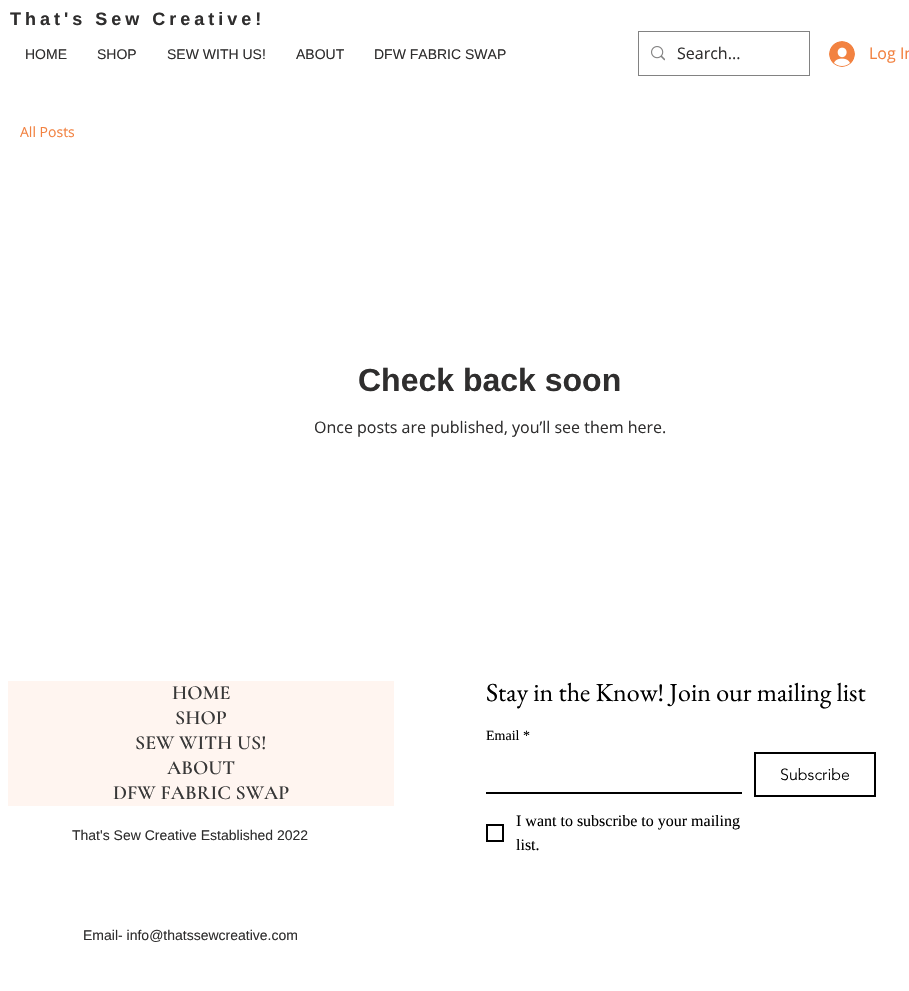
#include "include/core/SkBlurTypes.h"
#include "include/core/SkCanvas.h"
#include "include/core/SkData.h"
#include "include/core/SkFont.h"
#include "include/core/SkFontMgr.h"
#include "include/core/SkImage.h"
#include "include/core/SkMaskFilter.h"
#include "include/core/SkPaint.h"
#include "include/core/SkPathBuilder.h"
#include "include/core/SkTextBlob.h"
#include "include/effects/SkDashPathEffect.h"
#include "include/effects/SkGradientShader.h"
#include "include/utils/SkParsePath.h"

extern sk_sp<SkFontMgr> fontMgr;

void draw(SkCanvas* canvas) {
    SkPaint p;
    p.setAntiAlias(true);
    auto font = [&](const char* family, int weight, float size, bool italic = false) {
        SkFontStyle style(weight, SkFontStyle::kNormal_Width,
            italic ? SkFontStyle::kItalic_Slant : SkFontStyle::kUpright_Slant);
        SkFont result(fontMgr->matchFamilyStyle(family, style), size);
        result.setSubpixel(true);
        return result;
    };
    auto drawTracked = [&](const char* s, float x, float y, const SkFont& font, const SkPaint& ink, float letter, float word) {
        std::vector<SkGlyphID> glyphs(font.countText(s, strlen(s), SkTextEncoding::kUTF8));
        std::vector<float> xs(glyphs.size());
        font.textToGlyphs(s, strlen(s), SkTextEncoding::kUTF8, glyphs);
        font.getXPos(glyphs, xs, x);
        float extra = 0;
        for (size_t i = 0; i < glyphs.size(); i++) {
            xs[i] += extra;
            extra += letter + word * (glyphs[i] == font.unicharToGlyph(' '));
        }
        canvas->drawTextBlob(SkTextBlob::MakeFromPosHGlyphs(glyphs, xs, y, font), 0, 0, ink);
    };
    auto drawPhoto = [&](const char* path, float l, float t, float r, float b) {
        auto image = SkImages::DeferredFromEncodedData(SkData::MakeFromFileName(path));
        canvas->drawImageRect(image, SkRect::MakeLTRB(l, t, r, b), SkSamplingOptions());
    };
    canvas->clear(0xFFFFFFFF);
    auto font1 = font("Liberation Sans", 700, 18);
    p.setColor(0xFF2F2E2E);
    drawTracked("That's Sew Creative!", 10, 25, font1, p, 4, 0);
    auto font2 = font("Liberation Sans", 400, 14);
    {
        const struct { const char* s; float x, y; } items[] = {
            {"HOME", 25, 59},
            {"SHOP", 97, 59},
            {"SEW WITH US!", 167, 59},
            {"ABOUT", 296, 59},
            {"DFW FABRIC SWAP", 374, 59},
        };
        for (auto [s, x, y] : items) {
            canvas->drawString(s, x, y, font2, p);
        }
    }
    p.setStyle(SkPaint::kStroke_Style);
    p.setStrokeWidth(1);
    p.setColor(0xFF828282);
    canvas->drawRect(SkRect::MakeLTRB(638.5f, 31.5f, 809.5f, 75.5f), p);
    drawPhoto("media/1.png", 651, 46, 665, 61);
    auto font3 = font("Open Sans", 400, 16);
    p.setStyle(SkPaint::kFill_Style);
    p.setColor(0xFF2F2E2E);
    canvas->drawString("Search...", 677, 59, font3, p);
    drawPhoto("media/2.png", 829, 41, 855, 67);
    p.setColor(0xFFF28241);
    canvas->drawString("Log In", 869, 59, font3, p);
    auto font4 = font("Open Sans", 400, 14);
    canvas->drawString("All Posts", 20, 137, font4, p);
    auto font5 = font("Liberation Sans", 700, 32);
    p.setColor(0xFF2F2E2E);
    canvas->drawString("Check back soon", 358, 391, font5, p);
    canvas->drawString("Once posts are published, you’ll see them here.", 314, 433, font3, p);
    p.setColor(0xFFFFF5F0);
    canvas->drawRect(SkRect::MakeLTRB(8, 681, 394, 806), p);
    auto font6 = font("Cormorant Garamond", 600, 20);
    p.setColor(0xFF373737);
    {
        const struct { const char* s; float x, y; } items[] = {
            {"HOME", 172, 699},
            {"SHOP", 175, 724},
            {"SEW WITH US!", 135, 749},
            {"ABOUT", 167, 774},
            {"DFW FABRIC SWAP", 113, 799},
        };
        for (auto [s, x, y] : items) {
            canvas->drawString(s, x, y, font6, p);
        }
    }
    auto font7 = font("EB Garamond", 400, 26);
    p.setColor(0xFF000000);
    canvas->drawString("Stay in the Know! Join our mailing list", 486, 701, font7, p);
    auto font8 = font("Liberation Serif", 400, 14);
    canvas->drawString("Email", 486, 740, font8, p);
    canvas->drawString("*", 523, 740, font8, p);
    p.setStyle(SkPaint::kStroke_Style);
    p.setStrokeWidth(2);
    canvas->drawRect(SkRect::MakeLTRB(755, 753, 875, 796), p);
    auto font9 = font("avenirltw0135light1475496", 300, 16);
    p.setStyle(SkPaint::kFill_Style);
    canvas->drawString("Subscribe", 780, 780, font9, p);
    canvas->drawRect(SkRect::MakeLTRB(486, 792, 742, 794), p);
    p.setStyle(SkPaint::kStroke_Style);
    canvas->drawRect(SkRect::MakeLTRB(487, 825, 503, 841), p);
    auto font10 = font("Liberation Serif", 400, 16);
    p.setStyle(SkPaint::kFill_Style);
    canvas->drawString("I want to subscribe to your mailing", 516, 826, font10, p);
    canvas->drawString("list.", 516, 850, font10, p);
    p.setColor(0xFF2F2E2E);
    canvas->drawString("That's Sew Creative Established 2022", 72, 840, font2, p);
    canvas->drawString("Email- info@thatssewcreative.com", 83, 940, font2, p);
}
